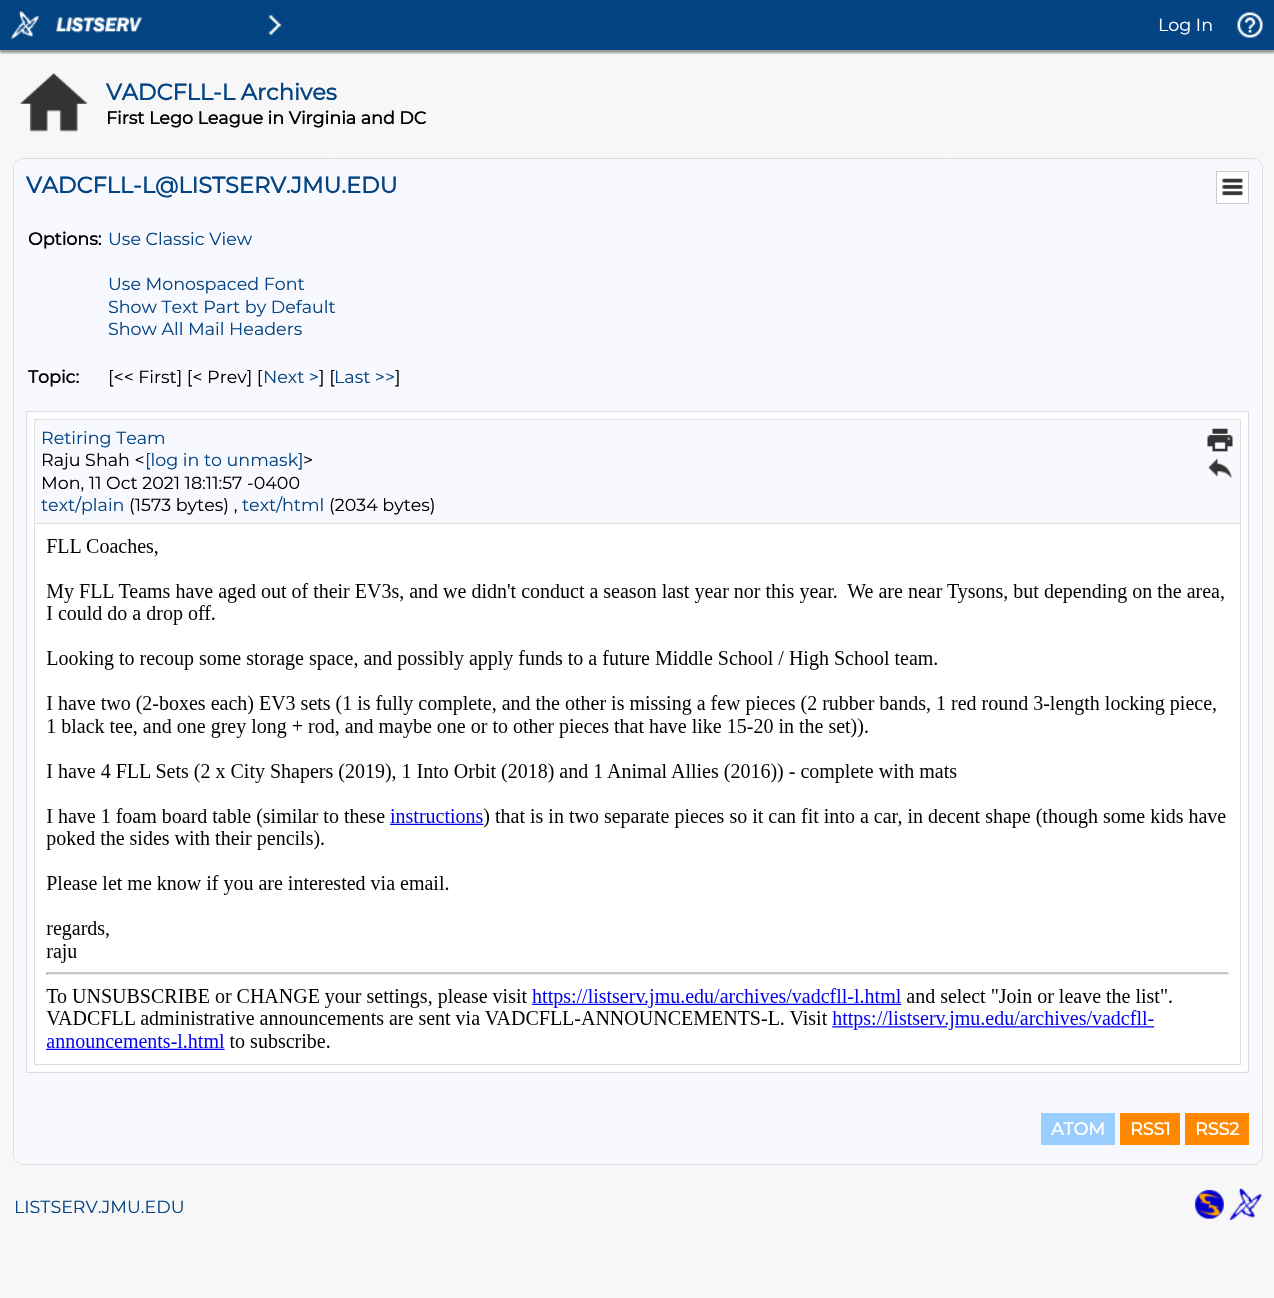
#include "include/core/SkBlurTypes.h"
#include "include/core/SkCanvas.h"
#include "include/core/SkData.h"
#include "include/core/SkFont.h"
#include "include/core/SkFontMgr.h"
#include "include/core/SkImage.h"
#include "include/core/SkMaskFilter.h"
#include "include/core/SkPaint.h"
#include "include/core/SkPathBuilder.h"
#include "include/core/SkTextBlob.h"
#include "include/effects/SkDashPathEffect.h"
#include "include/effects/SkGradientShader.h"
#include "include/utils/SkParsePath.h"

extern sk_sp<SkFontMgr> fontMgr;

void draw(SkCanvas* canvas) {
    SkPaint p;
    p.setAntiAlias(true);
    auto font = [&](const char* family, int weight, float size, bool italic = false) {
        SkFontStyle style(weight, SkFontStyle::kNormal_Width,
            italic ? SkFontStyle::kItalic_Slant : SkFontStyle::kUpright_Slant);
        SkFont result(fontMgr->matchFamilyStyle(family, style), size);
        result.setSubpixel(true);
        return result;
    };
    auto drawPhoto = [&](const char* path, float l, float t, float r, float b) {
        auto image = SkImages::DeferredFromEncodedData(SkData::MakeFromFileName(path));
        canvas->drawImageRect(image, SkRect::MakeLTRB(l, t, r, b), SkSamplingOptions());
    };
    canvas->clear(0xFFF7F7F7);
    p.setColor(0xFF999999);
    p.setMaskFilter(SkMaskFilter::MakeBlur(kNormal_SkBlurStyle, 1));
    canvas->drawRect(SkRect::MakeLTRB(0, 3, 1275, 53), p);
    p.setMaskFilter(nullptr);
    p.setColor(0xFF054483);
    canvas->drawRect(SkRect::MakeLTRB(0, 0, 1274, 50), p);
    drawPhoto("media/1.png", 11, 11, 39, 39);
    drawPhoto("media/2.png", 56, 17, 143, 33);
    drawPhoto("media/3.png", 268, 14, 282, 36);
    auto font1 = font("Montserrat", 100, 17.5f);
    p.setColor(0xFFFFFFFF);
    canvas->drawString("Log In", 1158, 31, font1, p);
    drawPhoto("media/4.png", 1237, 12, 1263, 38);
    drawPhoto("media/5.png", 20, 73, 88, 132);
    auto font2 = font("Montserrat", 700, 22.5f);
    p.setColor(0xFF054483);
    canvas->drawString("VADCFLL-L Archives", 106, 100, font2, p);
    auto font3 = font("Montserrat", 700, 17.5f);
    p.setColor(0xFF000000);
    canvas->drawString("First Lego League in Virginia and DC", 106, 124, font3, p);
    p.setColor(0xFFF7F9FE);
    canvas->drawRoundRect(SkRect::MakeLTRB(13.5f, 158.5f, 1262.5f, 1164.5f), 9.5f, 9.5f, p);
    p.setStyle(SkPaint::kStroke_Style);
    p.setStrokeWidth(1);
    p.setColor(0xFFDEDEDE);
    canvas->drawRoundRect(SkRect::MakeLTRB(13.5f, 158.5f, 1262.5f, 1164.5f), 9.5f, 9.5f, p);
    p.setStyle(SkPaint::kFill_Style);
    p.setColor(0xFF054483);
    canvas->drawString("VADCFLL-L@LISTSERV.JMU.EDU", 26, 193, font2, p);
    p.setColor(0xFFFFFFFF);
    canvas->drawRect(SkRect::MakeLTRB(1216.5f, 171.5f, 1248.5f, 203.5f), p);
    p.setStyle(SkPaint::kStroke_Style);
    p.setColor(0xFFCCCCCC);
    canvas->drawRect(SkRect::MakeLTRB(1216.5f, 171.5f, 1248.5f, 203.5f), p);
    drawPhoto("media/6.png", 1222, 178, 1243, 196);
    p.setStyle(SkPaint::kFill_Style);
    p.setColor(0xFF000000);
    canvas->drawString("Options:", 28, 245, font3, p);
    p.setColor(0xFF054483);
    {
        const struct { const char* s; float x, y; } items[] = {
            {"Use Classic View", 108, 245},
            {"Use Monospaced Font", 108, 290},
            {"Show Text Part by Default", 108, 313},
            {"Show All Mail Headers", 108, 335},
        };
        for (auto [s, x, y] : items) {
            canvas->drawString(s, x, y, font1, p);
        }
    }
    p.setColor(0xFF000000);
    canvas->drawString("Topic:", 28, 383, font3, p);
    canvas->drawString("[<< First] [< Prev] [", 108, 383, font1, p);
    p.setColor(0xFF054483);
    canvas->drawString("Next >", 263, 383, font1, p);
    p.setColor(0xFF000000);
    canvas->drawString("] [", 319, 383, font1, p);
    p.setColor(0xFF054483);
    canvas->drawString("Last >>", 334, 383, font1, p);
    p.setColor(0xFF000000);
    canvas->drawString("]", 395, 383, font1, p);
    p.setStyle(SkPaint::kStroke_Style);
    p.setColor(0xFFDEDEDE);
    canvas->drawRect(SkRect::MakeLTRB(26.5f, 411.5f, 1248.5f, 1072.5f), p);
    p.setStyle(SkPaint::kFill_Style);
    p.setColor(0xFFFFFFFF);
    canvas->drawRect(SkRect::MakeLTRB(28, 413, 1248, 1071), p);
    p.setStyle(SkPaint::kStroke_Style);
    p.setColor(0xFFDEDEDE);
    canvas->drawRect(SkRect::MakeLTRB(34.5f, 419.5f, 1240.5f, 1064.5f), p);
    p.setStyle(SkPaint::kFill_Style);
    p.setColor(0xFFF7F9FE);
    canvas->drawRect(SkRect::MakeLTRB(35, 420, 1240, 523), p);
    p.setColor(0xFFDEDEDE);
    canvas->drawRect(SkRect::MakeLTRB(35, 523, 1240, 524), p);
    p.setColor(0xFF054483);
    canvas->drawString("Retiring Team", 41, 444, font1, p);
    drawPhoto("media/7.png", 1207, 428, 1233, 452);
    drawPhoto("media/8.png", 1208, 458, 1232, 478);
    p.setColor(0xFF000000);
    canvas->drawString("Raju Shah <", 41, 466, font1, p);
    p.setColor(0xFF054483);
    canvas->drawString("[log in to unmask]", 145, 466, font1, p);
    p.setColor(0xFF000000);
    canvas->drawString(">", 303, 466, font1, p);
    canvas->drawString("Mon, 11 Oct 2021 18:11:57 -0400", 41, 489, font1, p);
    p.setColor(0xFF054483);
    canvas->drawString("text/plain", 41, 511, font1, p);
    p.setColor(0xFF000000);
    canvas->drawString("(1573 bytes) ,", 129, 511, font1, p);
    p.setColor(0xFF054483);
    canvas->drawString("text/html", 242, 511, font1, p);
    p.setColor(0xFF000000);
    canvas->drawString("(2034 bytes)", 329, 511, font1, p);
    drawPhoto("media/9.png", 46, 539, 1229, 1050);
    p.setColor(0xFF99CCFF);
    canvas->drawRect(SkRect::MakeLTRB(1041, 1113, 1115, 1145), p);
    p.setColor(0xFFFFFFFF);
    canvas->drawString("ATOM", 1051, 1135, font3, p);
    p.setColor(0xFFFF8800);
    canvas->drawRect(SkRect::MakeLTRB(1120, 1113, 1180, 1145), p);
    p.setColor(0xFFFFFFFF);
    canvas->drawString("RSS1", 1130, 1135, font3, p);
    p.setColor(0xFFFF8800);
    canvas->drawRect(SkRect::MakeLTRB(1185, 1113, 1249, 1145), p);
    p.setColor(0xFFFFFFFF);
    canvas->drawString("RSS2", 1195, 1135, font3, p);
    p.setColor(0xFF054483);
    canvas->drawString("LISTSERV.JMU.EDU", 14, 1213, font1, p);
    drawPhoto("media/10.png", 1194, 1189, 1224, 1219);
    drawPhoto("media/11.png", 1230, 1188, 1262, 1220);
}
